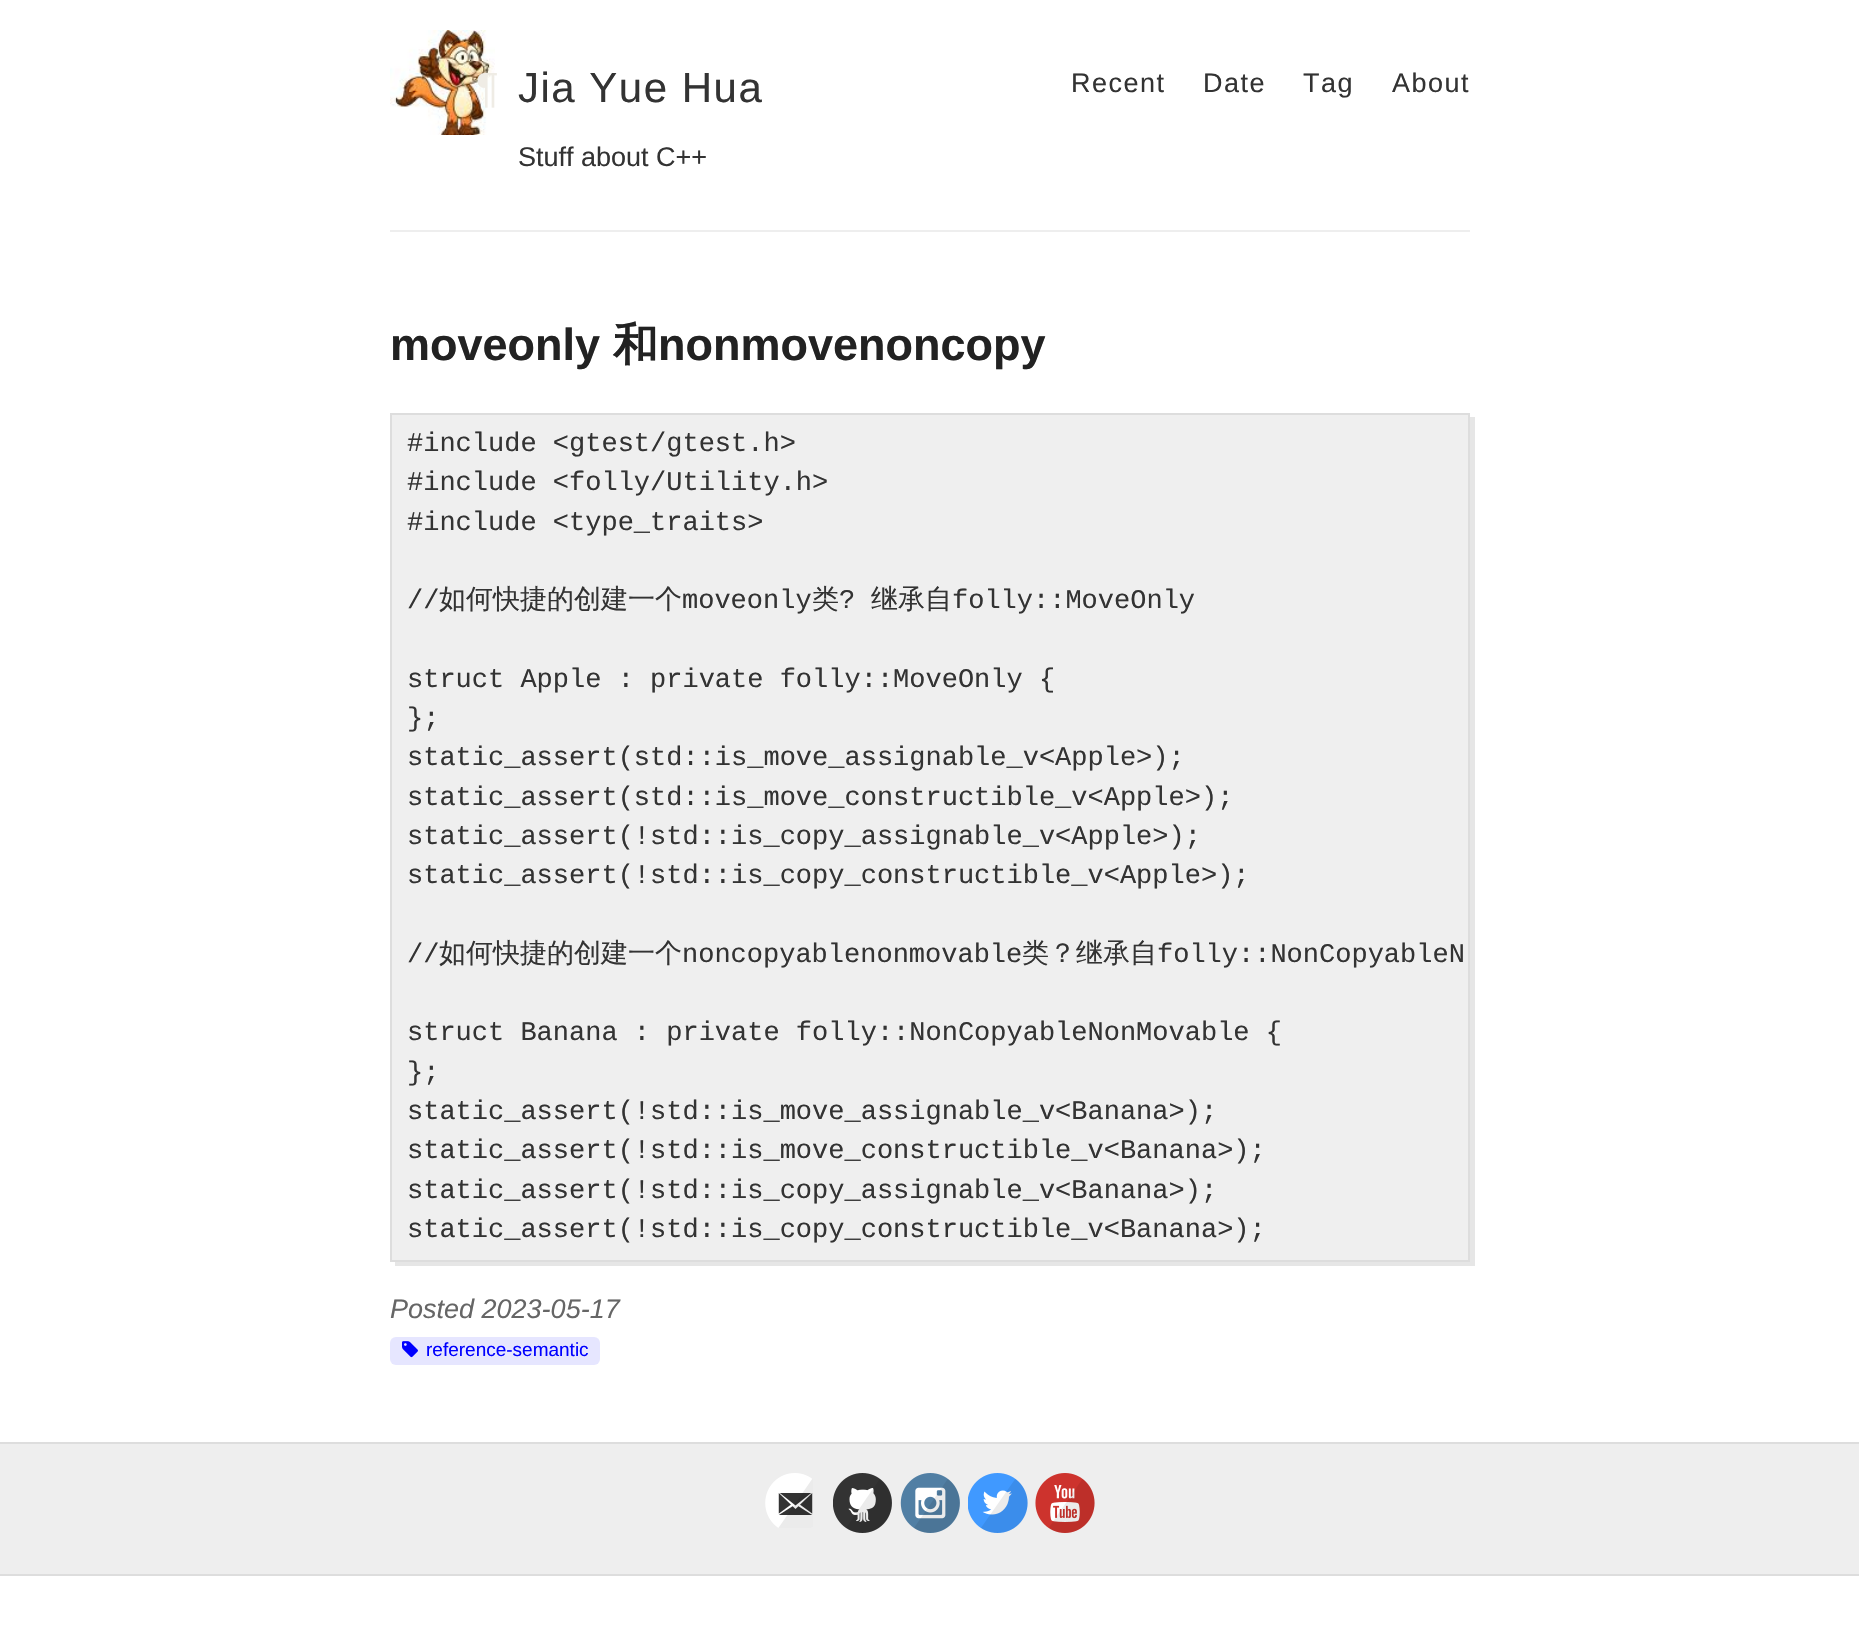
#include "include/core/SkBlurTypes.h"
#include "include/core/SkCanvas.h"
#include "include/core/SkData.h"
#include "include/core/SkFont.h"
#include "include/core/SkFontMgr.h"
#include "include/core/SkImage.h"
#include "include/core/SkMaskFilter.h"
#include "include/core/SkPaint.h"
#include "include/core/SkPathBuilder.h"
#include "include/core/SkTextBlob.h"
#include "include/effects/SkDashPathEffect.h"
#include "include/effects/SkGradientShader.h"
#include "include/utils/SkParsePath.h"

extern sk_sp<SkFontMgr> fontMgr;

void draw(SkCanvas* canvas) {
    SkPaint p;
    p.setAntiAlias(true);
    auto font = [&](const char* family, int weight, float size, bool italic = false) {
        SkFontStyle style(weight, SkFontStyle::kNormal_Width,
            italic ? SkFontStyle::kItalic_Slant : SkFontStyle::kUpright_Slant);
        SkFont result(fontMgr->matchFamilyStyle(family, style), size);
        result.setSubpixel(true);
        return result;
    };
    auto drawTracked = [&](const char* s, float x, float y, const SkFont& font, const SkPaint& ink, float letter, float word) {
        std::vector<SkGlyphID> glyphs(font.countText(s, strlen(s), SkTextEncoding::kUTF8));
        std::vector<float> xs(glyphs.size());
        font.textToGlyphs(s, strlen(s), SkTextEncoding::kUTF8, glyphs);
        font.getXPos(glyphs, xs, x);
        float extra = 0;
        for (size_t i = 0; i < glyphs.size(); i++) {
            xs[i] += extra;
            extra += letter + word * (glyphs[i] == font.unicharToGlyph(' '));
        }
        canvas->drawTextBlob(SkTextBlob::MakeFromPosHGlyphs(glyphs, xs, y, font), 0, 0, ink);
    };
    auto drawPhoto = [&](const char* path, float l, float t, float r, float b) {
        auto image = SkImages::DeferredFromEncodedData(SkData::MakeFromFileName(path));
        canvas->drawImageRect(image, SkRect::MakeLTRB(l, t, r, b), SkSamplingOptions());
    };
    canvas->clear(0xFFFFFFFF);
    p.setColor(0xFFEEEEEE);
    canvas->drawRect(SkRect::MakeLTRB(390, 230, 1470, 232), p);
    drawPhoto("media/1.png", 390, 30, 495, 135);
    auto font1 = font("Liberation Sans", 400, 42);
    p.setColor(0xFFEFECE5);
    drawTracked("¶", 476, 102, font1, p, 1.5f, 0);
    p.setColor(0xFF333333);
    drawTracked("Jia Yue Hua", 518, 102, font1, p, 1.5f, 0);
    auto font2 = font("Liberation Sans", 400, 27);
    canvas->drawString("Stuff about C++", 518, 166, font2, p);
    {
        const struct { const char* s; float x, y; } items[] = {
            {"Recent", 1071, 92},
            {"Date", 1203, 92},
            {"Tag", 1303, 92},
            {"About", 1392, 92},
        };
        for (auto [s, x, y] : items) {
            drawTracked(s, x, y, font2, p, 1.5f, 0);
        }
    }
    auto font3 = font("Liberation Sans", 700, 45);
    p.setColor(0xFF222222);
    canvas->drawString("moveonly", 390, 360, font3, p);
    auto font4 = font("WenQuanYi Zen Hei", 700, 45);
    canvas->drawString("和", 613, 360, font4, p);
    canvas->drawString("nonmovenoncopy", 658, 360, font3, p);
    p.setColor(0xFFE6E6E6);
    canvas->drawPath(SkPathBuilder().moveTo(395, 1262).lineTo(395, 1266).lineTo(1475, 1266).lineTo(1475, 417).lineTo(1470, 417).lineTo(1470, 1262).close().detach(), p);
    p.setColor(0xFFEFEFEF);
    canvas->drawRect(SkRect::MakeLTRB(391, 414, 1469, 1261), p);
    p.setStyle(SkPaint::kStroke_Style);
    p.setStrokeWidth(2);
    p.setColor(0xFFDDDDDD);
    canvas->drawRect(SkRect::MakeLTRB(391, 414, 1469, 1261), p);
    auto font5 = font("Liberation Mono", 400, 27);
    p.setStyle(SkPaint::kFill_Style);
    p.setColor(0xFF333333);
    {
        const struct { const char* s; float x, y; } items[] = {
            {"#include <gtest/gtest.h>", 407, 451},
            {"#include <folly/Utility.h>", 407, 490},
            {"#include <type_traits>", 407, 530},
            {"//", 407, 608},
        };
        for (auto [s, x, y] : items) {
            canvas->drawString(s, x, y, font5, p);
        }
    }
    auto font6 = font("WenQuanYi Zen Hei", 500, 27);
    canvas->drawString("如何快捷的创建一个", 439, 608, font6, p);
    canvas->drawString("moveonly", 682, 608, font5, p);
    canvas->drawString("类", 812, 608, font6, p);
    canvas->drawString("?", 839, 608, font5, p);
    canvas->drawString("继承自", 871, 608, font6, p);
    {
        const struct { const char* s; float x, y; } items[] = {
            {"folly::MoveOnly", 952, 608},
            {"struct Apple : private folly::MoveOnly {", 407, 687},
            {"};", 407, 726},
            {"static_assert(std::is_move_assignable_v<Apple>);", 407, 765},
            {"static_assert(std::is_move_constructible_v<Apple>);", 407, 805},
            {"static_assert(!std::is_copy_assignable_v<Apple>);", 407, 844},
            {"static_assert(!std::is_copy_constructible_v<Apple>);", 407, 883},
            {"//", 407, 962},
        };
        for (auto [s, x, y] : items) {
            canvas->drawString(s, x, y, font5, p);
        }
    }
    canvas->drawString("如何快捷的创建一个", 439, 962, font6, p);
    canvas->drawString("noncopyablenonmovable", 682, 962, font5, p);
    canvas->drawString("类？继承自", 1022, 962, font6, p);
    {
        const struct { const char* s; float x, y; } items[] = {
            {"folly::NonCopyableN", 1157, 962},
            {"struct Banana : private folly::NonCopyableNonMovable {", 407, 1040},
            {"};", 407, 1080},
            {"static_assert(!std::is_move_assignable_v<Banana>);", 407, 1119},
            {"static_assert(!std::is_move_constructible_v<Banana>);", 407, 1158},
            {"static_assert(!std::is_copy_assignable_v<Banana>);", 407, 1198},
            {"static_assert(!std::is_copy_constructible_v<Banana>);", 407, 1237},
        };
        for (auto [s, x, y] : items) {
            canvas->drawString(s, x, y, font5, p);
        }
    }
    auto font7 = font("Liberation Sans", 400, 27, true);
    p.setColor(0xFF666666);
    canvas->drawString("Posted 2023-05-17", 390, 1318, font7, p);
    p.setColor(0xFFE6E6FF);
    canvas->drawRoundRect(SkRect::MakeLTRB(390, 1337, 600, 1365), 6, 6, p);
    drawPhoto("media/2.png", 402, 1341, 418, 1358);
    auto font8 = font("Liberation Sans", 400, 19);
    p.setColor(0xFF0000FF);
    canvas->drawString("reference-semantic", 426, 1356, font8, p);
    {
        const struct { float l, t, r, b; SkColor color; } items[] = {
            {0, 1444, 1859, 1574, 0xFFEEEEEE},
            {0, 1442, 1859, 1444, 0xFFDDDDDD},
            {0, 1574, 1859, 1576, 0xFFDDDDDD},
        };
        for (auto [l, t, r, b, color] : items) {
            p.setColor(color);
            canvas->drawRect(SkRect::MakeLTRB(l, t, r, b), p);
        }
    }
    drawPhoto("media/3.png", 765, 1473, 813, 1528);
    drawPhoto("media/4.png", 833, 1473, 892, 1533);
    drawPhoto("media/5.png", 900, 1473, 960, 1533);
    drawPhoto("media/6.png", 968, 1473, 1028, 1533);
    drawPhoto("media/7.png", 1035, 1473, 1095, 1533);
}
